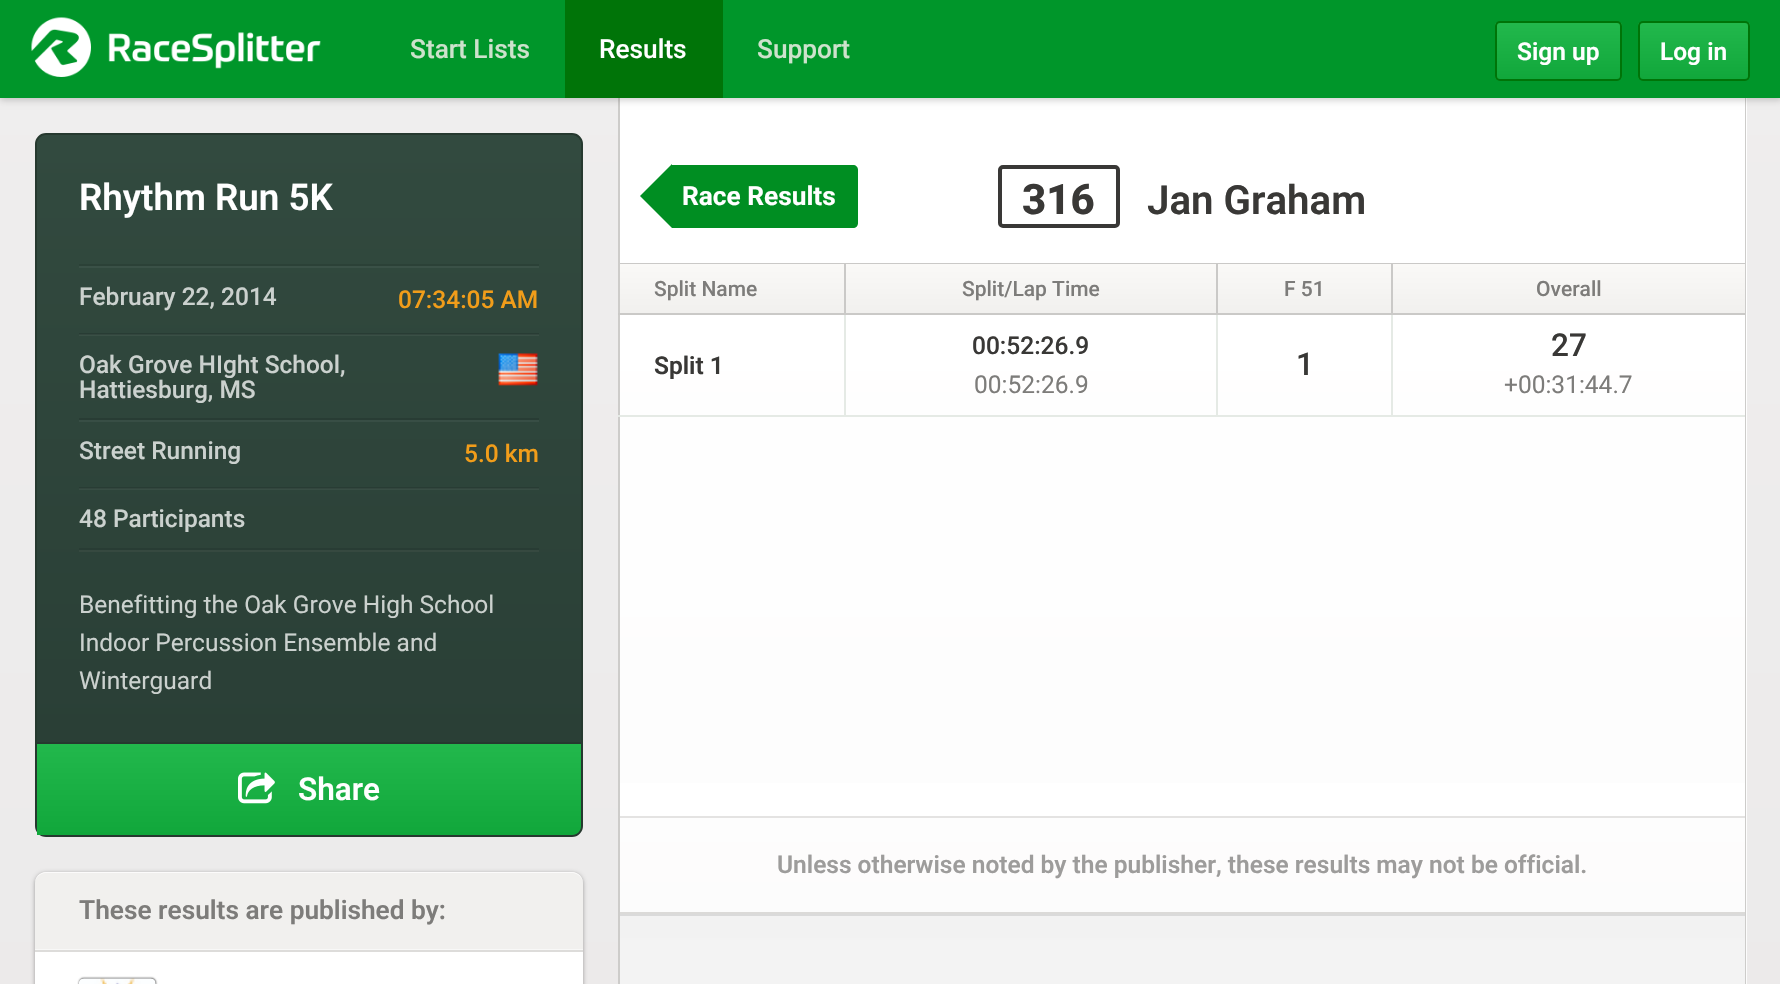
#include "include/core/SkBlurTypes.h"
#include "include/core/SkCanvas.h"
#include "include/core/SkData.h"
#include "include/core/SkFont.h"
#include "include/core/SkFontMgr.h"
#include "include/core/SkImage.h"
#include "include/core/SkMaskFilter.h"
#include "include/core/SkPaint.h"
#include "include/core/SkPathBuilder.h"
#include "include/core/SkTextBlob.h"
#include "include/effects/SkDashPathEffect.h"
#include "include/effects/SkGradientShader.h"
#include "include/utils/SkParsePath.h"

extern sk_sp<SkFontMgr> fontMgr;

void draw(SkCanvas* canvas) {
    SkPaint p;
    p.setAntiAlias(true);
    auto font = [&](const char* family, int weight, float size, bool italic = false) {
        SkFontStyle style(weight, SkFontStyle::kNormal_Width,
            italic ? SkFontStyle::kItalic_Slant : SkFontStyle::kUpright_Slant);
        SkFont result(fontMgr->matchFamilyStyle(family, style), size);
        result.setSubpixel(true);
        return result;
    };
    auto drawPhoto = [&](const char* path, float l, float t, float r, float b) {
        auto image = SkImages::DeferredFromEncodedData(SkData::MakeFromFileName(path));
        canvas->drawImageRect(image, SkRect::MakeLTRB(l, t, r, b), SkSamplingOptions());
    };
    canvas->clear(0xFFFFFFFF);
    {
        const SkColor colors[] = {0xFFEFEEEE, 0xFFEAE8E8};
        const float stops[] = {0, 1};
        const SkPoint ends[] = {{0, 0}, {0, 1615}};
        p.setShader(SkGradientShader::MakeLinear(ends, colors, stops, 2, SkTileMode::kClamp));
        p.setAlpha(255);
    }
    canvas->drawRect(SkRect::MakeLTRB(0, 98, 1780, 984), p);
    {
        const SkColor colors[] = {0xFFFFFFFF, 0xBFFFFFFF};
        const float stops[] = {0, 1};
        const SkPoint ends[] = {{620, 95}, {620, 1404}};
        p.setShader(SkGradientShader::MakeLinear(ends, colors, stops, 2, SkTileMode::kClamp));
        p.setAlpha(255);
    }
    canvas->drawRect(SkRect::MakeLTRB(620, 98, 1747, 984), p);
    p.setShader(nullptr);
    p.setColor(0xFFCDCCCA);
    canvas->drawPath(SkPathBuilder(SkPathFillType::kEvenOdd).moveTo(618, 94).lineTo(1746, 94).lineTo(1746, 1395).cubicTo(1746, 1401, 1742, 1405, 1736, 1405).lineTo(628, 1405).cubicTo(622, 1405, 618, 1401, 618, 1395).close().moveTo(620, 94).lineTo(1745, 94).lineTo(1745, 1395).cubicTo(1745, 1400, 1741, 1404, 1736, 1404).lineTo(628, 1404).cubicTo(623, 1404, 620, 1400, 620, 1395).close().detach(), p);
    p.setColor(0x33000000);
    p.setMaskFilter(SkMaskFilter::MakeBlur(kNormal_SkBlurStyle, 3.5f));
    canvas->drawRect(SkRect::MakeLTRB(0, 2, 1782, 100), p);
    p.setMaskFilter(nullptr);
    p.setColor(0xFF00962A);
    canvas->drawRect(SkRect::MakeLTRB(0, 0, 1780, 98), p);
    drawPhoto("media/1.png", 31, 17, 321, 77);
    auto font1 = font("Roboto", 500, 26.25f);
    p.setColor(0xFFCDE2CC);
    canvas->drawString("Start Lists", 410, 58, font1, p);
    p.setColor(0xFF007408);
    canvas->drawRect(SkRect::MakeLTRB(565, 0, 723, 98), p);
    p.setColor(0xFFFFFFFF);
    canvas->drawString("Results", 599, 58, font1, p);
    p.setColor(0xFFCDE2CC);
    canvas->drawString("Support", 757, 58, font1, p);
    canvas->save();
    canvas->clipPath(SkPathBuilder().moveTo(1500, 21).lineTo(1617, 21).cubicTo(1620, 21, 1622, 23, 1622, 26).lineTo(1622, 76).cubicTo(1622, 79, 1620, 81, 1617, 81).lineTo(1500, 81).cubicTo(1497, 81, 1495, 79, 1495, 76).lineTo(1495, 26).cubicTo(1495, 23, 1497, 21, 1500, 21).close().detach(), true);
    {
        const SkColor colors[] = {0xFF22B84C, 0xFF11A73B};
        const float stops[] = {0, 1};
        const SkPoint ends[] = {{1558, 23}, {1558, 79}};
        p.setShader(SkGradientShader::MakeLinear(ends, colors, stops, 2, SkTileMode::kClamp));
        p.setAlpha(255);
    }
    canvas->drawRect(SkRect::MakeLTRB(1495, 23, 1622, 79), p);
    canvas->restore();
    p.setStyle(SkPaint::kStroke_Style);
    p.setStrokeWidth(2);
    p.setShader(nullptr);
    p.setColor(0xFF007408);
    canvas->drawRoundRect(SkRect::MakeLTRB(1496, 22, 1621, 80), 4, 4, p);
    auto font2 = font("Roboto", 600, 24.5f);
    p.setStyle(SkPaint::kFill_Style);
    p.setColor(0xFFFFFFFF);
    canvas->drawString("Sign up", 1517, 60, font2, p);
    canvas->save();
    canvas->clipPath(SkPathBuilder().moveTo(1643, 21).lineTo(1745, 21).cubicTo(1748, 21, 1750, 23, 1750, 26).lineTo(1750, 76).cubicTo(1750, 79, 1748, 81, 1745, 81).lineTo(1643, 81).cubicTo(1640, 81, 1638, 79, 1638, 76).lineTo(1638, 26).cubicTo(1638, 23, 1640, 21, 1643, 21).close().detach(), true);
    {
        const SkColor colors[] = {0xFF22B84C, 0xFF11A73B};
        const float stops[] = {0, 1};
        const SkPoint ends[] = {{1694, 23}, {1694, 79}};
        p.setShader(SkGradientShader::MakeLinear(ends, colors, stops, 2, SkTileMode::kClamp));
        p.setAlpha(255);
    }
    canvas->drawRect(SkRect::MakeLTRB(1638, 23, 1750, 79), p);
    canvas->restore();
    p.setStyle(SkPaint::kStroke_Style);
    p.setShader(nullptr);
    p.setColor(0xFF007408);
    canvas->drawRoundRect(SkRect::MakeLTRB(1639, 22, 1749, 80), 4, 4, p);
    p.setStyle(SkPaint::kFill_Style);
    p.setColor(0xFFFFFFFF);
    canvas->drawString("Log in", 1660, 60, font2, p);
    p.setColor(0xFF324A3F);
    canvas->drawRoundRect(SkRect::MakeLTRB(36, 134, 582, 836), 10, 10, p);
    p.setStyle(SkPaint::kStroke_Style);
    p.setColor(0xFF26392F);
    canvas->drawRoundRect(SkRect::MakeLTRB(36, 134, 582, 836), 10, 10, p);
    p.setStyle(SkPaint::kFill_Style);
    {
        const SkColor colors[] = {0xFF324A3F, 0xFF2A3F36};
        const float stops[] = {0, 1};
        const SkPoint ends[] = {{37, 135}, {37, 742}};
        p.setShader(SkGradientShader::MakeLinear(ends, colors, stops, 2, SkTileMode::kClamp));
        p.setAlpha(255);
    }
    canvas->drawPath(SkPathBuilder().moveTo(48, 135).lineTo(570, 135).cubicTo(576, 135, 581, 140, 581, 146).lineTo(581, 742).lineTo(37, 742).lineTo(37, 146).cubicTo(37, 140, 42, 135, 48, 135).close().detach(), p);
    {
        const SkColor colors[] = {0xFF3C5349, 0xFF354940};
        const float stops[] = {0, 1};
        const SkPoint ends[] = {{37, 135}, {37, 742}};
        p.setShader(SkGradientShader::MakeLinear(ends, colors, stops, 2, SkTileMode::kClamp));
        p.setAlpha(255);
    }
    canvas->drawRect(SkRect::MakeLTRB(79, 489, 539, 490), p);
    canvas->drawRect(SkRect::MakeLTRB(79, 335, 539, 336), p);
    auto font3 = font("Roboto", 600, 36.75f);
    p.setShader(nullptr);
    p.setColor(0xFFFFFFFF);
    canvas->drawString("Rhythm Run 5K", 79, 210, font3, p);
    {
        const struct { float l, t, r, b; SkColor color; } items[] = {
            {79, 264, 539, 266, 0xFF2B4137},
            {79, 550, 539, 552, 0xFF364940},
            {79, 266, 539, 268, 0xFF3A5147},
            {79, 333, 539, 334, 0xFF283C34},
            {79, 334, 539, 335, 0xFF33463E},
        };
        for (auto [l, t, r, b, color] : items) {
            p.setColor(color);
            canvas->drawRect(SkRect::MakeLTRB(l, t, r, b), p);
        }
    }
    auto font4 = font("Roboto", 500, 24.5f);
    p.setColor(0xFFCBD1CE);
    canvas->drawString("February 22, 2014", 79, 305, font4, p);
    p.setColor(0xFFF19D1A);
    canvas->drawString("07:34:05 AM", 398, 308, font4, p);
    p.setColor(0xFF283C34);
    canvas->drawRect(SkRect::MakeLTRB(79, 418, 539, 420), p);
    p.setColor(0xFFCBD1CE);
    canvas->drawString("Oak Grove HIght School,", 79, 373, font4, p);
    canvas->drawString("Hattiesburg, MS", 79, 398, font4, p);
    drawPhoto("media/2.png", 498, 353, 538, 386);
    {
        const struct { float l, t, r, b; SkColor color; } items[] = {
            {79, 420, 539, 422, 0xFF384E45},
            {79, 487, 539, 488, 0xFF283C34},
            {79, 488, 539, 489, 0xFF33463E},
        };
        for (auto [l, t, r, b, color] : items) {
            p.setColor(color);
            canvas->drawRect(SkRect::MakeLTRB(l, t, r, b), p);
        }
    }
    p.setColor(0xFFCBD1CE);
    canvas->drawString("Street Running", 79, 459, font4, p);
    p.setColor(0xFFF19D1A);
    canvas->drawString("5.0 km", 464, 462, font4, p);
    p.setColor(0xFF283C34);
    canvas->drawRect(SkRect::MakeLTRB(79, 548, 539, 550), p);
    p.setColor(0xFFCBD1CE);
    canvas->drawString("48 Participants", 79, 527, font4, p);
    auto font5 = font("Roboto", 400, 24.5f);
    {
        const struct { const char* s; float x, y; } items[] = {
            {"Benefitting the Oak Grove High School", 79, 613},
            {"Indoor Percussion Ensemble and", 79, 651},
            {"Winterguard", 79, 689},
        };
        for (auto [s, x, y] : items) {
            canvas->drawString(s, x, y, font5, p);
        }
    }
    p.setColor(0xFF26392F);
    canvas->drawRect(SkRect::MakeLTRB(35, 742, 583, 744), p);
    {
        const SkColor colors[] = {0xFF22B84C, 0xFF11A73B};
        const float stops[] = {0, 1};
        const SkPoint ends[] = {{309, 744}, {309, 835}};
        p.setShader(SkGradientShader::MakeLinear(ends, colors, stops, 2, SkTileMode::kClamp));
        p.setAlpha(255);
    }
    canvas->drawPath(SkPathBuilder().moveTo(37, 744).lineTo(581, 744).lineTo(581, 826).cubicTo(581, 831, 577, 835, 572, 835).lineTo(37, 835).close().detach(), p);
    drawPhoto("media/3.png", 238, 772, 275, 804);
    auto font6 = font("Roboto", 600, 31.5f);
    p.setShader(nullptr);
    p.setColor(0xFFFFFFFF);
    canvas->drawString("Share", 298, 800, font6, p);
    p.setColor(0x59000000);
    p.setMaskFilter(SkMaskFilter::MakeBlur(kNormal_SkBlurStyle, 2));
    canvas->drawRoundRect(SkRect::MakeLTRB(35, 873, 583, 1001), 11, 11, p);
    p.setMaskFilter(nullptr);
    p.setColor(0xFFF1F0EE);
    canvas->drawPath(SkPathBuilder().moveTo(46, 872).lineTo(572, 872).cubicTo(578, 872, 583, 877, 583, 883).lineTo(583, 950).lineTo(35, 950).lineTo(35, 883).cubicTo(35, 877, 40, 872, 46, 872).close().detach(), p);
    p.setColor(0xFFFCFBFB);
    canvas->drawPath(SkPathBuilder().moveTo(46, 873).lineTo(572, 873).cubicTo(578, 873, 583, 878, 583, 884).lineTo(583, 883).cubicTo(583, 877, 578, 872, 572, 872).lineTo(46, 872).cubicTo(40, 872, 35, 877, 35, 883).lineTo(35, 884).cubicTo(35, 878, 40, 873, 46, 873).close().detach(), p);
    p.setColor(0x80FFFFFF);
    canvas->drawRect(SkRect::MakeLTRB(35, 949, 583, 950), p);
    auto font7 = font("Roboto", 600, 26.25f);
    p.setColor(0xFF7D7C7A);
    canvas->drawString("These results are published by:", 79, 919, font7, p);
    p.setColor(0xFFFFFFFF);
    canvas->drawRect(SkRect::MakeLTRB(35, 952, 583, 984), p);
    p.setColor(0xFFDDDCDA);
    canvas->drawRect(SkRect::MakeLTRB(35, 950, 583, 952), p);
    p.setColor(0xBF000000);
    p.setMaskFilter(SkMaskFilter::MakeBlur(kNormal_SkBlurStyle, 1));
    canvas->drawRoundRect(SkRect::MakeLTRB(79, 978, 156, 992), 5, 5, p);
    p.setMaskFilter(nullptr);
    drawPhoto("media/4.png", 79, 978, 156, 984);
    p.setColor(0xFF008E22);
    canvas->drawPath(SkPathBuilder().moveTo(672, 165).lineTo(853, 165).cubicTo(856, 165, 858, 167, 858, 170).lineTo(858, 223).cubicTo(858, 226, 856, 228, 853, 228).lineTo(672, 228).close().detach(), p);
    canvas->drawPath(SkPathBuilder().moveTo(672, 164).lineTo(672, 228).lineTo(640, 196).close().detach(), p);
    auto font8 = font("Roboto", 700, 26.25f);
    p.setColor(0xFFFFFFFF);
    canvas->drawString("Race Results", 682, 205, font8, p);
    p.setStyle(SkPaint::kStroke_Style);
    p.setStrokeWidth(4);
    p.setColor(0xFF393836);
    canvas->drawRoundRect(SkRect::MakeLTRB(1000, 167, 1118, 226), 3, 3, p);
    auto font9 = font("Roboto", 800, 42);
    p.setStyle(SkPaint::kFill_Style);
    canvas->drawString("316", 1022, 214, font9, p);
    auto font10 = font("Roboto", 600, 40.25f);
    canvas->drawString("Jan Graham", 1147, 214, font10, p);
    p.setColor(0xFFCAC9C7);
    canvas->drawRect(SkRect::MakeLTRB(620, 263, 1745, 264), p);
    p.setColor(0xFFFFFFFF);
    canvas->drawRect(SkRect::MakeLTRB(620, 783, 1745, 816), p);
    {
        const SkColor colors[] = {0xFFFAF9F7, 0xFFF1F0EE};
        const float stops[] = {0, 1};
        const SkPoint ends[] = {{620, 264}, {620, 313}};
        p.setShader(SkGradientShader::MakeLinear(ends, colors, stops, 2, SkTileMode::kClamp));
        p.setAlpha(255);
    }
    canvas->drawRect(SkRect::MakeLTRB(620, 264, 844, 313), p);
    p.setShader(nullptr);
    {
        const struct { float l, t, r, b; SkColor color; } items[] = {
            {618, 415, 1745, 417, 0xFFE5EAE5},
            {1391, 313, 1393, 417, 0xFFE5EAE5},
            {1391, 313, 1745, 315, 0xFFCAC9C7},
            {1391, 264, 1393, 315, 0xFFCAC9C7},
            {1216, 313, 1218, 417, 0xFFE5EAE5},
            {1216, 313, 1393, 315, 0xFFCAC9C7},
            {1216, 264, 1218, 315, 0xFFCAC9C7},
            {844, 313, 846, 417, 0xFFE5EAE5},
            {844, 313, 1218, 315, 0xFFCAC9C7},
            {844, 264, 846, 315, 0xFFCAC9C7},
            {618, 313, 845, 315, 0xFFCAC9C7},
        };
        for (auto [l, t, r, b, color] : items) {
            p.setColor(color);
            canvas->drawRect(SkRect::MakeLTRB(l, t, r, b), p);
        }
    }
    auto font11 = font("Roboto", 500, 21);
    p.setColor(0xFF7D7C7A);
    canvas->drawString("Split Name", 654, 296, font11, p);
    {
        const SkColor colors[] = {0xFFFAF9F7, 0xFFF1F0EE};
        const float stops[] = {0, 1};
        const SkPoint ends[] = {{844, 264}, {844, 313}};
        p.setShader(SkGradientShader::MakeLinear(ends, colors, stops, 2, SkTileMode::kClamp));
        p.setAlpha(255);
    }
    canvas->drawRect(SkRect::MakeLTRB(846, 264, 1216, 313), p);
    p.setShader(nullptr);
    p.setColor(0xFF7D7C7A);
    canvas->drawString("Split/Lap Time", 962, 296, font11, p);
    {
        const SkColor colors[] = {0xFFFAF9F7, 0xFFF1F0EE};
        const float stops[] = {0, 1};
        const SkPoint ends[] = {{1218, 264}, {1218, 313}};
        p.setShader(SkGradientShader::MakeLinear(ends, colors, stops, 2, SkTileMode::kClamp));
        p.setAlpha(255);
    }
    canvas->drawRect(SkRect::MakeLTRB(1218, 264, 1391, 313), p);
    p.setShader(nullptr);
    p.setColor(0xFF7D7C7A);
    canvas->drawString("F 51", 1284, 296, font11, p);
    {
        const SkColor colors[] = {0xFFFAF9F7, 0xFFF1F0EE};
        const float stops[] = {0, 1};
        const SkPoint ends[] = {{1391, 264}, {1391, 313}};
        p.setShader(SkGradientShader::MakeLinear(ends, colors, stops, 2, SkTileMode::kClamp));
        p.setAlpha(255);
    }
    canvas->drawRect(SkRect::MakeLTRB(1393, 264, 1745, 313), p);
    p.setShader(nullptr);
    p.setColor(0xFF7D7C7A);
    canvas->drawString("Overall", 1536, 296, font11, p);
    p.setColor(0xFF393836);
    canvas->drawString("Split 1", 654, 374, font2, p);
    canvas->drawString("00:52:26.9", 972, 354, font4, p);
    p.setColor(0xFF7D7C7A);
    canvas->drawString("00:52:26.9", 974, 393, font5, p);
    auto font12 = font("Roboto", 500, 31.5f);
    p.setColor(0xFF393836);
    canvas->drawString("1", 1296, 375, font12, p);
    canvas->drawString("27", 1551, 356, font12, p);
    p.setColor(0xFF7D7C7A);
    canvas->drawString("+00:31:44.7", 1504, 393, font5, p);
    p.setColor(0xFFE4E3E2);
    canvas->drawRect(SkRect::MakeLTRB(620, 816, 1745, 818), p);
    p.setColor(0xFF9D9C9B);
    canvas->drawString("Unless otherwise noted by the publisher, these results may not be official.", 777, 873, font2, p);
    {
        const SkColor colors[] = {0xFFF2F2F2, 0xFFFCFCFC};
        const float stops[] = {0, 1};
        const SkPoint ends[] = {{620, 914}, {620, 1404}};
        p.setShader(SkGradientShader::MakeLinear(ends, colors, stops, 2, SkTileMode::kClamp));
        p.setAlpha(255);
    }
    canvas->drawRect(SkRect::MakeLTRB(620, 916, 1745, 984), p);
    p.setShader(nullptr);
    p.setColor(0xFFDADADA);
    canvas->drawRect(SkRect::MakeLTRB(620, 914, 1745, 916), p);
    p.setColor(0xFFDBDAD8);
    canvas->drawRect(SkRect::MakeLTRB(620, 912, 1745, 914), p);
}
